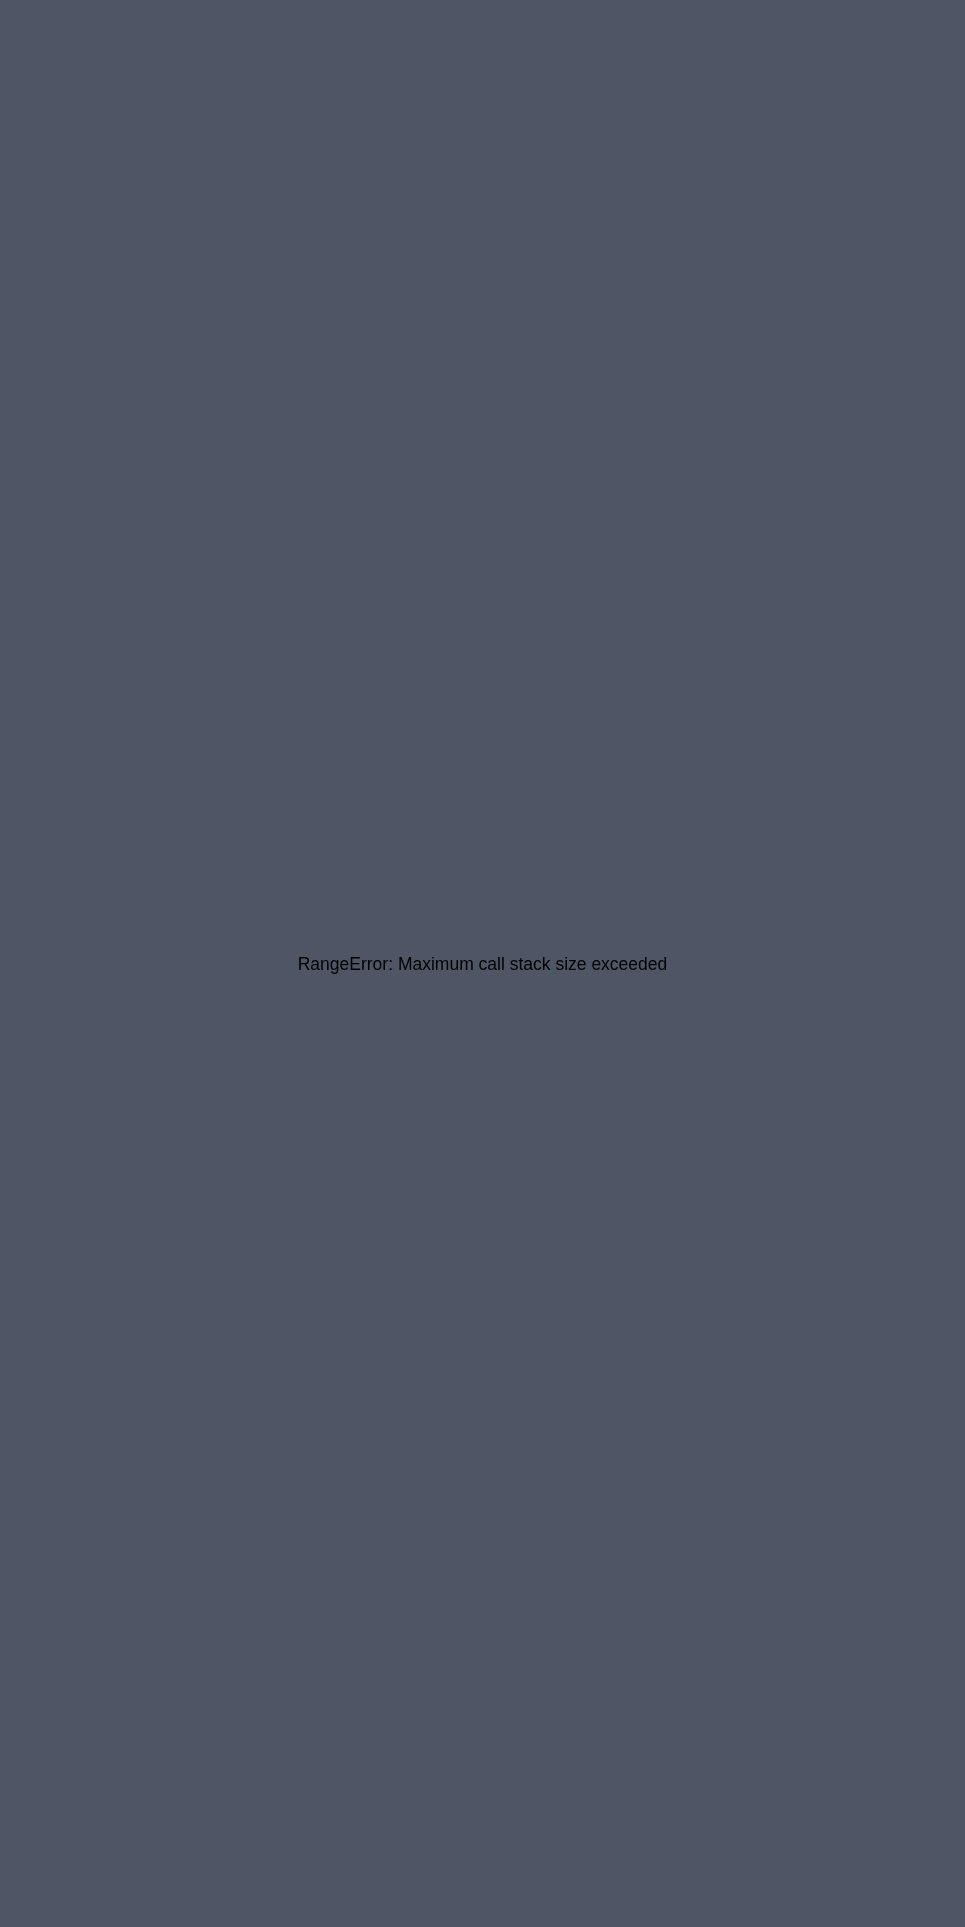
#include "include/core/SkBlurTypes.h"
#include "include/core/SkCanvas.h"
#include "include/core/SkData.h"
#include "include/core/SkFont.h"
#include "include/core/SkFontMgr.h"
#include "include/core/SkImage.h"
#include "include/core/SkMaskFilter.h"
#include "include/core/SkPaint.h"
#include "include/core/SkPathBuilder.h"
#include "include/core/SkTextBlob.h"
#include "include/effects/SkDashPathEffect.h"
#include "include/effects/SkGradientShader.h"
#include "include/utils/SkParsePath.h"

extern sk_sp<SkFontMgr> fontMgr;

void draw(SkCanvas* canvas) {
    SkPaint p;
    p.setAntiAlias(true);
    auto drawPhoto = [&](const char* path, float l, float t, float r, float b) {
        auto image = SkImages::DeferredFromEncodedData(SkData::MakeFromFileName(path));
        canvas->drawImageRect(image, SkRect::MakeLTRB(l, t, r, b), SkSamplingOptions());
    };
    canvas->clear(0xFF4E5565);
    drawPhoto("media/1.png", 299, 957, 667, 974);
}
